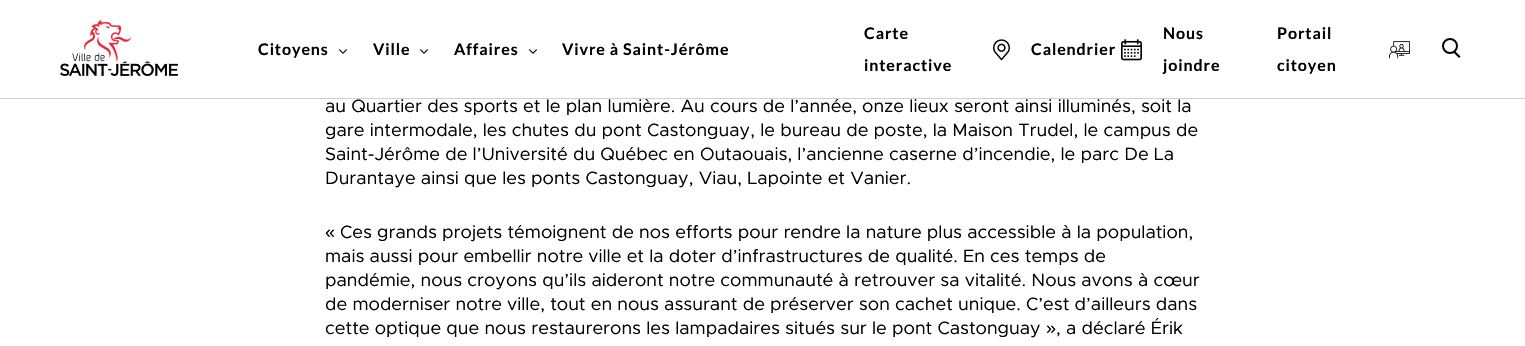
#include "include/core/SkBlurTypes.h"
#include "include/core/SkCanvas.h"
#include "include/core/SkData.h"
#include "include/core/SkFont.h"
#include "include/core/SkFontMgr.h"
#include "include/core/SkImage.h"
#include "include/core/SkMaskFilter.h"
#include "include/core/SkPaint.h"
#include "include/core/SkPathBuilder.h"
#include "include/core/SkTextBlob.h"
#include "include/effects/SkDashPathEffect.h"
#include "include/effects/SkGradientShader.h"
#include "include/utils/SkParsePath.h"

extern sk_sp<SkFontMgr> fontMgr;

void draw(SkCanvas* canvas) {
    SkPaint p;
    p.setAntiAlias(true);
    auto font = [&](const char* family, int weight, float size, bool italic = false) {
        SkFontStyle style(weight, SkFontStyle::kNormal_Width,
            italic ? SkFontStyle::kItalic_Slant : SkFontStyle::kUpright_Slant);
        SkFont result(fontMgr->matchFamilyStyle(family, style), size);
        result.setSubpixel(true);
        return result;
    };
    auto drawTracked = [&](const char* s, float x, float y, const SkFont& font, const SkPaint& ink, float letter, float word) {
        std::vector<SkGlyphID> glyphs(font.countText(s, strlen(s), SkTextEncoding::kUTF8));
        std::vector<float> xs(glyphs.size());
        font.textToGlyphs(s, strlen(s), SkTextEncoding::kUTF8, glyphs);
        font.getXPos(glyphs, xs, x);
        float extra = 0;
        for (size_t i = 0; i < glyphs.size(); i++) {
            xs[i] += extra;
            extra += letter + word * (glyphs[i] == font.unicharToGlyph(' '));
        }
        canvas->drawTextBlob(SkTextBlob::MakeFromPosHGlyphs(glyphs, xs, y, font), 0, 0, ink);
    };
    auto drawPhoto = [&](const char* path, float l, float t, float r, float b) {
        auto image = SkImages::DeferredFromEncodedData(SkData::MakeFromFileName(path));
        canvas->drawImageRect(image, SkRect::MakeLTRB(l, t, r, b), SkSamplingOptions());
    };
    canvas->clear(0xFFFFFFFF);
    p.setColor(0xFFCED2D4);
    canvas->drawRect(SkRect::MakeLTRB(0, 98, 1525, 99), p);
    drawPhoto("media/1.png", 60, 20, 178, 76);
    auto font1 = font("Lato", 700, 16);
    p.setColor(0xFF000000);
    drawTracked("Citoyens", 258, 55, font1, p, 0.9f, 0);
    drawPhoto("media/2.png", 339, 49, 347, 54);
    drawTracked("Ville", 373, 55, font1, p, 0.9f, 0);
    drawPhoto("media/2.png", 420, 49, 428, 54);
    drawTracked("Affaires", 454, 55, font1, p, 0.9f, 0);
    drawPhoto("media/2.png", 529, 49, 537, 54);
    drawTracked("Vivre à Saint-Jérôme", 562, 55, font1, p, 0.9f, 0);
    drawTracked("Carte", 864, 39, font1, p, 0.9f, 0);
    drawPhoto("media/3.png", 993, 39, 1010, 61);
    drawTracked("interactive", 864, 71, font1, p, 0.9f, 0);
    drawTracked("Calendrier", 1031, 55, font1, p, 0.9f, 0);
    drawPhoto("media/4.png", 1121, 39, 1142, 61);
    {
        const struct { const char* s; float x, y; } items[] = {
            {"Nous", 1163, 39},
            {"joindre", 1163, 71},
            {"Portail", 1277, 39},
        };
        for (auto [s, x, y] : items) {
            drawTracked(s, x, y, font1, p, 0.9f, 0);
        }
    }
    drawPhoto("media/5.png", 1389, 41, 1410, 59);
    drawTracked("citoyen", 1277, 71, font1, p, 0.9f, 0);
    p.setStyle(SkPaint::kStroke_Style);
    p.setStrokeWidth(2);
    p.setColor(0xFF020202);
    canvas->drawCircle(1450, 46, 7, p);
    p.setStyle(SkPaint::kFill_Style);
    canvas->drawPath(SkPathBuilder().moveTo(1455, 51).lineTo(1460.5f, 56.5f).lineTo(1459, 58).lineTo(1453.5f, 52.5f).close().detach(), p);
    auto font2 = font("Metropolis", 400, 18);
    p.setColor(0xFF000000);
    {
        const struct { const char* s; float x, y; } items[] = {
            {"au Quartier des sports et le plan lumière. Au cours de l’année, onze lieux seront ainsi illuminés, soit la", 325, 112},
            {"gare intermodale, les chutes du pont Castonguay, le bureau de poste, la Maison Trudel, le campus de", 325, 136},
            {"Saint-Jérôme de l’Université du Québec en Outaouais, l’ancienne caserne d’incendie, le parc De La", 325, 160},
            {"Durantaye ainsi que les ponts Castonguay, Viau, Lapointe et Vanier.", 325, 184},
        };
        for (auto [s, x, y] : items) {
            canvas->drawString(s, x, y, font2, p);
        }
    }
    auto font3 = font("Liberation Sans", 400, 18);
    canvas->drawString("«", 325, 238, font3, p);
    {
        const struct { const char* s; float x, y; } items[] = {
            {"Ces grands projets témoignent de nos efforts pour rendre la nature plus accessible à la population,", 340, 238},
            {"mais aussi pour embellir notre ville et la doter d’infrastructures de qualité. En ces temps de", 325, 262},
            {"pandémie, nous croyons qu’ils aideront notre communauté à retrouver sa vitalité. Nous avons à cœur", 325, 286},
            {"de moderniser notre ville, tout en nous assurant de préserver son cachet unique. C’est d’ailleurs dans", 325, 310},
            {"cette optique que nous restaurerons les lampadaires situés sur le pont Castonguay", 325, 334},
        };
        for (auto [s, x, y] : items) {
            canvas->drawString(s, x, y, font2, p);
        }
    }
    canvas->drawString("»", 1046, 334, font3, p);
    canvas->drawString(", a déclaré Érik", 1056, 334, font2, p);
}
